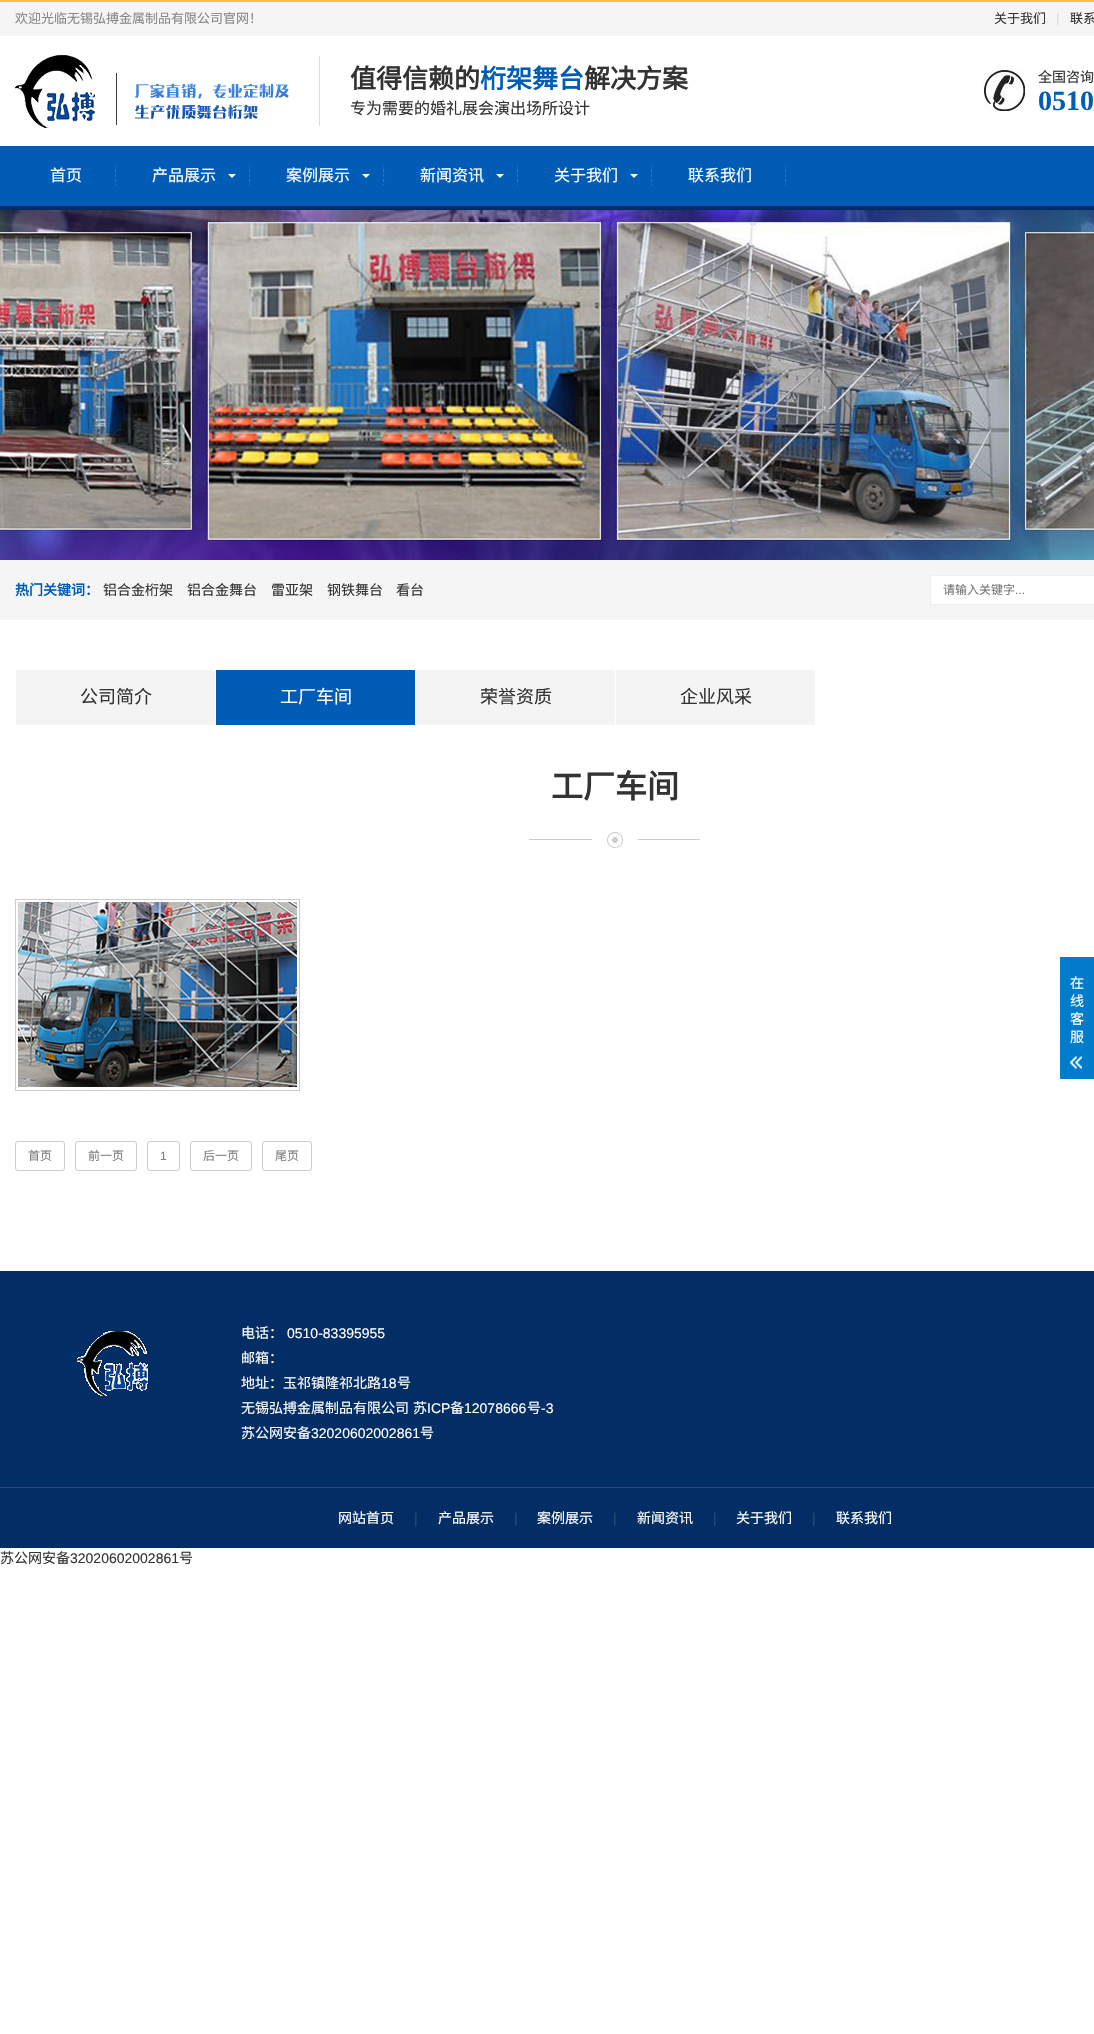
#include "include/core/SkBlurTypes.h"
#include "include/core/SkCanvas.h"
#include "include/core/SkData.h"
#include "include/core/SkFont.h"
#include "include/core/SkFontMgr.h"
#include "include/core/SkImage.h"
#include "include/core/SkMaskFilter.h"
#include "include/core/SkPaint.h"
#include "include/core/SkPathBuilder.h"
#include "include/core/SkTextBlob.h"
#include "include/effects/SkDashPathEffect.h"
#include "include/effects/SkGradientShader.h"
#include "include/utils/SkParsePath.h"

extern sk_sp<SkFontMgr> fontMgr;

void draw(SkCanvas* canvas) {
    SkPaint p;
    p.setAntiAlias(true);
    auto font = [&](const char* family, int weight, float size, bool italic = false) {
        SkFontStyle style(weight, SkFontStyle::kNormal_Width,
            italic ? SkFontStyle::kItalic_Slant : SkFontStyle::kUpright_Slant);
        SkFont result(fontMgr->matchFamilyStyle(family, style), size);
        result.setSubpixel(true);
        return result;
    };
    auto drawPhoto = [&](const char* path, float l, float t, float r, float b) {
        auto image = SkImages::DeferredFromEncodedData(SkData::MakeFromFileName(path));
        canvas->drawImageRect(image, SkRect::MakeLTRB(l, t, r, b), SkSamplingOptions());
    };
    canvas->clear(0xFFFFFFFF);
    p.setColor(0xFFF5F5F5);
    canvas->drawRect(SkRect::MakeLTRB(0, 2, 1094, 36), p);
    p.setColor(0xFFF7C433);
    canvas->drawRect(SkRect::MakeLTRB(0, 0, 1094, 2), p);
    auto font1 = font("Noto Sans CJK SC", 400, 13);
    p.setColor(0xFF888888);
    canvas->drawString("欢迎光临无锡弘搏金属制品有限公司官网！", 15, 23, font1, p);
    p.setColor(0xFF333333);
    canvas->drawString("关于我们", 994, 23, font1, p);
    auto font2 = font("Liberation Sans", 400, 13);
    p.setColor(0xFFDDDDDD);
    canvas->drawString("|", 1056, 23, font2, p);
    p.setColor(0xFF333333);
    canvas->drawString("联系", 1070, 23, font1, p);
    drawPhoto("media/1.png", 15, 55, 289, 128);
    p.setColor(0xFFDDDDDD);
    canvas->drawRect(SkRect::MakeLTRB(319, 56, 320, 126), p);
    auto font3 = font("Noto Sans CJK SC", 700, 26);
    p.setColor(0xFF333333);
    canvas->drawString("值得信赖的", 350, 88, font3, p);
    p.setColor(0xFF015CB5);
    canvas->drawString("桁架舞台", 480, 88, font3, p);
    p.setColor(0xFF333333);
    canvas->drawString("解决方案", 584, 88, font3, p);
    auto font4 = font("Noto Sans CJK SC", 400, 16);
    canvas->drawString("专为需要的婚礼展会演出场所设计", 350, 114, font4, p);
    drawPhoto("media/2.png", 983, 69, 1027, 113);
    auto font5 = font("Noto Sans CJK SC", 400, 14);
    canvas->drawString("全国咨询", 1038, 82, font5, p);
    auto font6 = font("Liberation Serif", 700, 28);
    p.setColor(0xFF015CB5);
    canvas->drawString("0510", 1038, 110, font6, p);
    canvas->drawRect(SkRect::MakeLTRB(0, 146, 1094, 206), p);
    p.setColor(0xFF022D64);
    canvas->drawRect(SkRect::MakeLTRB(0, 206, 1094, 210), p);
    drawPhoto("media/3.png", 115, 166, 117, 185);
    p.setColor(0xFFFFFFFF);
    canvas->drawString("首页", 50, 181, font4, p);
    drawPhoto("media/3.png", 249, 166, 251, 185);
    canvas->drawString("产品展示", 152, 181, font4, p);
    canvas->drawPath(SkPathBuilder().moveTo(228, 174).lineTo(236, 174).lineTo(232, 178).close().detach(), p);
    drawPhoto("media/3.png", 383, 166, 385, 185);
    canvas->drawString("案例展示", 286, 181, font4, p);
    canvas->drawPath(SkPathBuilder().moveTo(362, 174).lineTo(370, 174).lineTo(366, 178).close().detach(), p);
    drawPhoto("media/3.png", 517, 166, 519, 185);
    canvas->drawString("新闻资讯", 420, 181, font4, p);
    canvas->drawPath(SkPathBuilder().moveTo(496, 174).lineTo(504, 174).lineTo(500, 178).close().detach(), p);
    drawPhoto("media/3.png", 651, 166, 653, 185);
    canvas->drawString("关于我们", 554, 181, font4, p);
    canvas->drawPath(SkPathBuilder().moveTo(630, 174).lineTo(638, 174).lineTo(634, 178).close().detach(), p);
    drawPhoto("media/3.png", 785, 166, 787, 185);
    canvas->drawString("联系我们", 688, 181, font4, p);
    drawPhoto("media/4.png", 0, 210, 1094, 560);
    p.setColor(0xFFF5F5F5);
    canvas->drawRect(SkRect::MakeLTRB(0, 560, 1094, 620), p);
    auto font7 = font("Noto Sans CJK SC", 700, 14);
    p.setColor(0xFF015CB5);
    canvas->drawString("热门关键词：", 15, 595, font7, p);
    p.setColor(0xFF333333);
    {
        const struct { const char* s; float x, y; } items[] = {
            {"铝合金桁架", 103, 595},
            {"铝合金舞台", 187, 595},
            {"雷亚架", 271, 595},
            {"钢铁舞台", 327, 595},
            {"看台", 396, 595},
        };
        for (auto [s, x, y] : items) {
            canvas->drawString(s, x, y, font5, p);
        }
    }
    p.setColor(0xFFFFFFFF);
    canvas->drawRect(SkRect::MakeLTRB(930.5f, 575.5f, 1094.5f, 604.5f), p);
    p.setStyle(SkPaint::kStroke_Style);
    p.setStrokeWidth(1);
    p.setColor(0xFFEEEEEE);
    canvas->drawRect(SkRect::MakeLTRB(930.5f, 575.5f, 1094.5f, 604.5f), p);
    auto font8 = font("Noto Sans CJK SC", 400, 12);
    p.setStyle(SkPaint::kFill_Style);
    p.setColor(0xFF757575);
    canvas->drawString("请输入关键字", 943, 594, font8, p);
    auto font9 = font("Liberation Sans", 400, 12);
    canvas->drawString("...", 1015, 594, font9, p);
    p.setColor(0xFFF4F4F4);
    canvas->drawRect(SkRect::MakeLTRB(16, 670, 215, 725), p);
    auto font10 = font("Noto Sans CJK SC", 400, 18);
    p.setColor(0xFF333333);
    canvas->drawString("公司简介", 80, 703, font10, p);
    p.setColor(0xFF015CB5);
    canvas->drawRect(SkRect::MakeLTRB(216, 670, 415, 725), p);
    p.setColor(0xFFFFFFFF);
    canvas->drawString("工厂车间", 280, 703, font10, p);
    p.setColor(0xFFF4F4F4);
    canvas->drawRect(SkRect::MakeLTRB(416, 670, 615, 725), p);
    p.setColor(0xFF333333);
    canvas->drawString("荣誉资质", 480, 703, font10, p);
    p.setColor(0xFFF4F4F4);
    canvas->drawRect(SkRect::MakeLTRB(616, 670, 815, 725), p);
    p.setColor(0xFF333333);
    canvas->drawString("企业风采", 680, 703, font10, p);
    auto font11 = font("Noto Sans CJK SC", 700, 32);
    canvas->drawString("工厂车间", 551, 798, font11, p);
    drawPhoto("media/5.png", 527, 831, 701, 848);
    p.setStyle(SkPaint::kStroke_Style);
    p.setColor(0xFFCCCCCC);
    canvas->drawRect(SkRect::MakeLTRB(15.5f, 899.5f, 299.5f, 1090.5f), p);
    drawPhoto("media/6.png", 18, 902, 297, 1087);
    canvas->drawRoundRect(SkRect::MakeLTRB(15.5f, 1141.5f, 64.5f, 1170.5f), 2.5f, 2.5f, p);
    p.setStyle(SkPaint::kFill_Style);
    p.setColor(0xFF808080);
    canvas->drawString("首页", 28, 1160, font8, p);
    p.setStyle(SkPaint::kStroke_Style);
    p.setColor(0xFFCCCCCC);
    canvas->drawRoundRect(SkRect::MakeLTRB(75.5f, 1141.5f, 136.5f, 1170.5f), 2.5f, 2.5f, p);
    p.setStyle(SkPaint::kFill_Style);
    p.setColor(0xFF808080);
    canvas->drawString("前一页", 88, 1160, font8, p);
    p.setStyle(SkPaint::kStroke_Style);
    p.setColor(0xFFCCCCCC);
    canvas->drawRoundRect(SkRect::MakeLTRB(147.5f, 1141.5f, 179.5f, 1170.5f), 2.5f, 2.5f, p);
    p.setStyle(SkPaint::kFill_Style);
    p.setColor(0xFF808080);
    canvas->drawString("1", 160, 1160, font9, p);
    p.setStyle(SkPaint::kStroke_Style);
    p.setColor(0xFFCCCCCC);
    canvas->drawRoundRect(SkRect::MakeLTRB(190.5f, 1141.5f, 251.5f, 1170.5f), 2.5f, 2.5f, p);
    p.setStyle(SkPaint::kFill_Style);
    p.setColor(0xFF808080);
    canvas->drawString("后一页", 203, 1160, font8, p);
    p.setStyle(SkPaint::kStroke_Style);
    p.setColor(0xFFCCCCCC);
    canvas->drawRoundRect(SkRect::MakeLTRB(262.5f, 1141.5f, 311.5f, 1170.5f), 2.5f, 2.5f, p);
    p.setStyle(SkPaint::kFill_Style);
    p.setColor(0xFF808080);
    canvas->drawString("尾页", 275, 1160, font8, p);
    p.setColor(0xFF007CCB);
    canvas->drawRect(SkRect::MakeLTRB(1060, 957, 1094, 1079), p);
    p.setColor(0xFFFFFFFF);
    {
        const struct { const char* s; float x, y; } items[] = {
            {"在", 1070, 988},
            {"线", 1070, 1006},
            {"客", 1070, 1024},
            {"服", 1070, 1042},
        };
        for (auto [s, x, y] : items) {
            canvas->drawString(s, x, y, font5, p);
        }
    }
    drawPhoto("media/7.png", 1070, 1056, 1082, 1069);
    p.setColor(0xFF032E65);
    canvas->drawRect(SkRect::MakeLTRB(0, 1271, 1094, 1548), p);
    drawPhoto("media/8.png", 77, 1331, 148, 1396);
    p.setColor(0xFFFFFFFF);
    canvas->drawString("电话：", 241, 1338, font5, p);
    auto font12 = font("Liberation Sans", 400, 14);
    canvas->drawString("0510-83395955", 287, 1338, font12, p);
    canvas->drawString("邮箱：", 241, 1363, font5, p);
    canvas->drawString("地址：玉祁镇隆祁北路", 241, 1388, font5, p);
    canvas->drawString("18", 381, 1388, font12, p);
    {
        const struct { const char* s; float x, y; } items[] = {
            {"号", 397, 1388},
            {"无锡弘搏金属制品有限公司", 241, 1413},
            {"苏", 413, 1413},
        };
        for (auto [s, x, y] : items) {
            canvas->drawString(s, x, y, font5, p);
        }
    }
    canvas->drawString("ICP", 427, 1413, font12, p);
    canvas->drawString("备", 450, 1413, font5, p);
    canvas->drawString("12078666", 464, 1413, font12, p);
    canvas->drawString("号", 527, 1413, font5, p);
    canvas->drawString("-3", 541, 1413, font12, p);
    canvas->drawString("苏公网安备", 241, 1438, font5, p);
    canvas->drawString("32020602002861", 311, 1438, font12, p);
    canvas->drawString("号", 420, 1438, font5, p);
    p.setColor(0xFF294A72);
    canvas->drawRect(SkRect::MakeLTRB(0, 1487, 1094, 1488), p);
    p.setColor(0xFFFFFFFF);
    canvas->drawString("网站首页", 338, 1523, font5, p);
    p.setColor(0xFF294A72);
    canvas->drawString("|", 414, 1523, font12, p);
    p.setColor(0xFFFFFFFF);
    canvas->drawString("产品展示", 438, 1523, font5, p);
    p.setColor(0xFF294A72);
    canvas->drawString("|", 514, 1523, font12, p);
    p.setColor(0xFFFFFFFF);
    canvas->drawString("案例展示", 537, 1523, font5, p);
    p.setColor(0xFF294A72);
    canvas->drawString("|", 613, 1523, font12, p);
    p.setColor(0xFFFFFFFF);
    canvas->drawString("新闻资讯", 637, 1523, font5, p);
    p.setColor(0xFF294A72);
    canvas->drawString("|", 713, 1523, font12, p);
    p.setColor(0xFFFFFFFF);
    canvas->drawString("关于我们", 736, 1523, font5, p);
    p.setColor(0xFF294A72);
    canvas->drawString("|", 812, 1523, font12, p);
    p.setColor(0xFFFFFFFF);
    canvas->drawString("联系我们", 836, 1523, font5, p);
    p.setColor(0xFF333333);
    canvas->drawString("苏公网安备", 0, 1563, font5, p);
    canvas->drawString("32020602002861", 70, 1563, font12, p);
    canvas->drawString("号", 179, 1563, font5, p);
}
